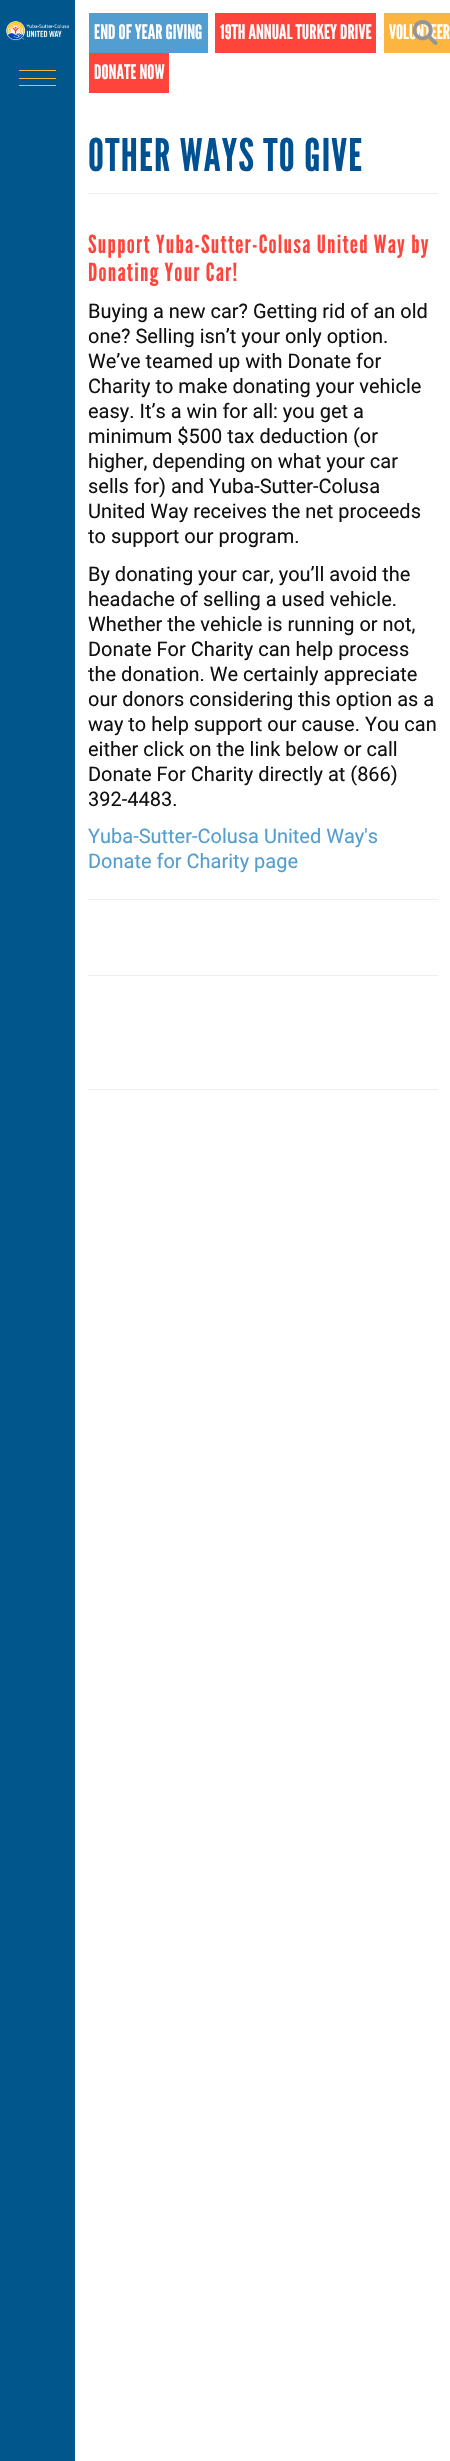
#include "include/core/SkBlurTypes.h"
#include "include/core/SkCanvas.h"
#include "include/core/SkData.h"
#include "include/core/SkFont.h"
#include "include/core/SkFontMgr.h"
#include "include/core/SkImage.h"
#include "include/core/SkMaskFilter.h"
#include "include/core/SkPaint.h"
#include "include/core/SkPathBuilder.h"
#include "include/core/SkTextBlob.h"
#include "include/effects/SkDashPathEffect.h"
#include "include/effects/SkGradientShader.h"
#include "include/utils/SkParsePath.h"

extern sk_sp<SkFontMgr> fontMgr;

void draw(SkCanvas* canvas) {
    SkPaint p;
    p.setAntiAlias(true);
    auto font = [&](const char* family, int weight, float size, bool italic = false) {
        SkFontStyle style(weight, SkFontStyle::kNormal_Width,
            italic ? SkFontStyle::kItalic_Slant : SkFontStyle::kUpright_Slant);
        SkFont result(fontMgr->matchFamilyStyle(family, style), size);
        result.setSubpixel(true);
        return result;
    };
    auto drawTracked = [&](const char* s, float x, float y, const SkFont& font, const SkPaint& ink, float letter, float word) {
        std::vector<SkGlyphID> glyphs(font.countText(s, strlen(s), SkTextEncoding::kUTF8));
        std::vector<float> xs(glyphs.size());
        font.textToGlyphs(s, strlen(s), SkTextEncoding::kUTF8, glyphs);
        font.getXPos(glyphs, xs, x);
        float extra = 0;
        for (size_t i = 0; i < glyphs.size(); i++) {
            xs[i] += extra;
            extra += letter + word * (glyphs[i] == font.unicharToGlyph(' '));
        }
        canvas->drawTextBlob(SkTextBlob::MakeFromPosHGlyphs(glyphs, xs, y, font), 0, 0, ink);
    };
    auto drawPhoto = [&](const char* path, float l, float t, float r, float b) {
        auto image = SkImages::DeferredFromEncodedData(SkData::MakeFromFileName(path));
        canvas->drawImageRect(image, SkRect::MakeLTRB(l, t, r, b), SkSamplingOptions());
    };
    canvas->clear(0xFFFFFFFF);
    p.setColor(0xFF01568C);
    canvas->drawRect(SkRect::MakeLTRB(0, 0, 75, 2461), p);
    drawPhoto("media/1.png", 6, 21, 69, 41);
    {
        const struct { float l, t, r, b; SkColor color; } items[] = {
            {19, 70, 56, 71, 0xFFFCB53E},
            {19, 78, 56, 79, 0xFFFCB53E},
            {19, 85, 56, 86, 0xFFFCB53E},
            {384, 13, 450, 53, 0xFFFCB53E},
        };
        for (auto [l, t, r, b, color] : items) {
            p.setColor(color);
            canvas->drawRect(SkRect::MakeLTRB(l, t, r, b), p);
        }
    }
    auto font1 = font("League Gothic", 400, 20);
    p.setColor(0xFFFFFFFF);
    canvas->drawString("VOLUNTEER", 389, 39, font1, p);
    drawPhoto("media/2.png", 412, 20, 438, 45);
    p.setColor(0xFF539ED0);
    canvas->drawRect(SkRect::MakeLTRB(89, 13, 208, 53), p);
    p.setColor(0xFFFFFFFF);
    canvas->drawString("END OF YEAR GIVING", 94, 39, font1, p);
    p.setColor(0xFFFF443B);
    canvas->drawRect(SkRect::MakeLTRB(215, 13, 376, 53), p);
    p.setColor(0xFFFFFFFF);
    canvas->drawString("19TH ANNUAL TURKEY DRIVE", 220, 39, font1, p);
    p.setColor(0xFFFF443B);
    canvas->drawRect(SkRect::MakeLTRB(89, 53, 169, 93), p);
    p.setColor(0xFFFFFFFF);
    canvas->drawString("DONATE NOW", 94, 79, font1, p);
    p.setColor(0xFFEEEEEE);
    canvas->drawRect(SkRect::MakeLTRB(88, 193, 438, 194), p);
    auto font2 = font("League Gothic", 400, 45);
    p.setColor(0xFF005191);
    drawTracked("OTHER WAYS TO GIVE", 88, 171, font2, p, 1.25f, 0);
    auto font3 = font("League Gothic", 400, 25);
    p.setColor(0xFFFF443B);
    drawTracked("Support Yuba-Sutter-Colusa United Way by", 88, 253, font3, p, 1.25f, 0);
    drawTracked("Donating Your Car!", 88, 281, font3, p, 1.25f, 0);
    auto font4 = font("Roboto", 400, 20);
    p.setColor(0xFF111111);
    {
        const struct { const char* s; float x, y; } items[] = {
            {"Buying a new car? Getting rid of an old", 88, 318},
            {"one? Selling isn’t your only option.", 88, 343},
            {"We’ve teamed up with Donate for", 88, 368},
            {"Charity to make donating your vehicle", 88, 393},
            {"easy. It’s a win for all: you get a", 88, 418},
            {"minimum $500 tax deduction (or", 88, 443},
            {"higher, depending on what your car", 88, 468},
            {"sells for) and Yuba-Sutter-Colusa", 88, 493},
            {"United Way receives the net proceeds", 88, 518},
            {"to support our program.", 88, 543},
            {"By donating your car, you’ll avoid the", 88, 581},
            {"headache of selling a used vehicle.", 88, 606},
            {"Whether the vehicle is running or not,", 88, 631},
            {"Donate For Charity can help process", 88, 656},
            {"the donation. We certainly appreciate", 88, 681},
            {"our donors considering this option as a", 88, 706},
            {"way to help support our cause. You can", 88, 731},
            {"either click on the link below or call", 88, 756},
            {"Donate For Charity directly at (866)", 88, 781},
            {"392-4483.", 88, 806},
        };
        for (auto [s, x, y] : items) {
            canvas->drawString(s, x, y, font4, p);
        }
    }
    p.setColor(0xFF539ED0);
    canvas->drawString("Yuba-Sutter-Colusa United Way's", 88, 843, font4, p);
    canvas->drawString("Donate for Charity page", 88, 868, font4, p);
    {
        const struct { float l, t, r, b; SkColor color; } items[] = {
            {88, 899, 438, 900, 0xFFEEEEEE},
            {88, 975, 438, 976, 0xFFEEEEEE},
            {88, 1089, 438, 1090, 0xFFEEEEEE},
        };
        for (auto [l, t, r, b, color] : items) {
            p.setColor(color);
            canvas->drawRect(SkRect::MakeLTRB(l, t, r, b), p);
        }
    }
}
